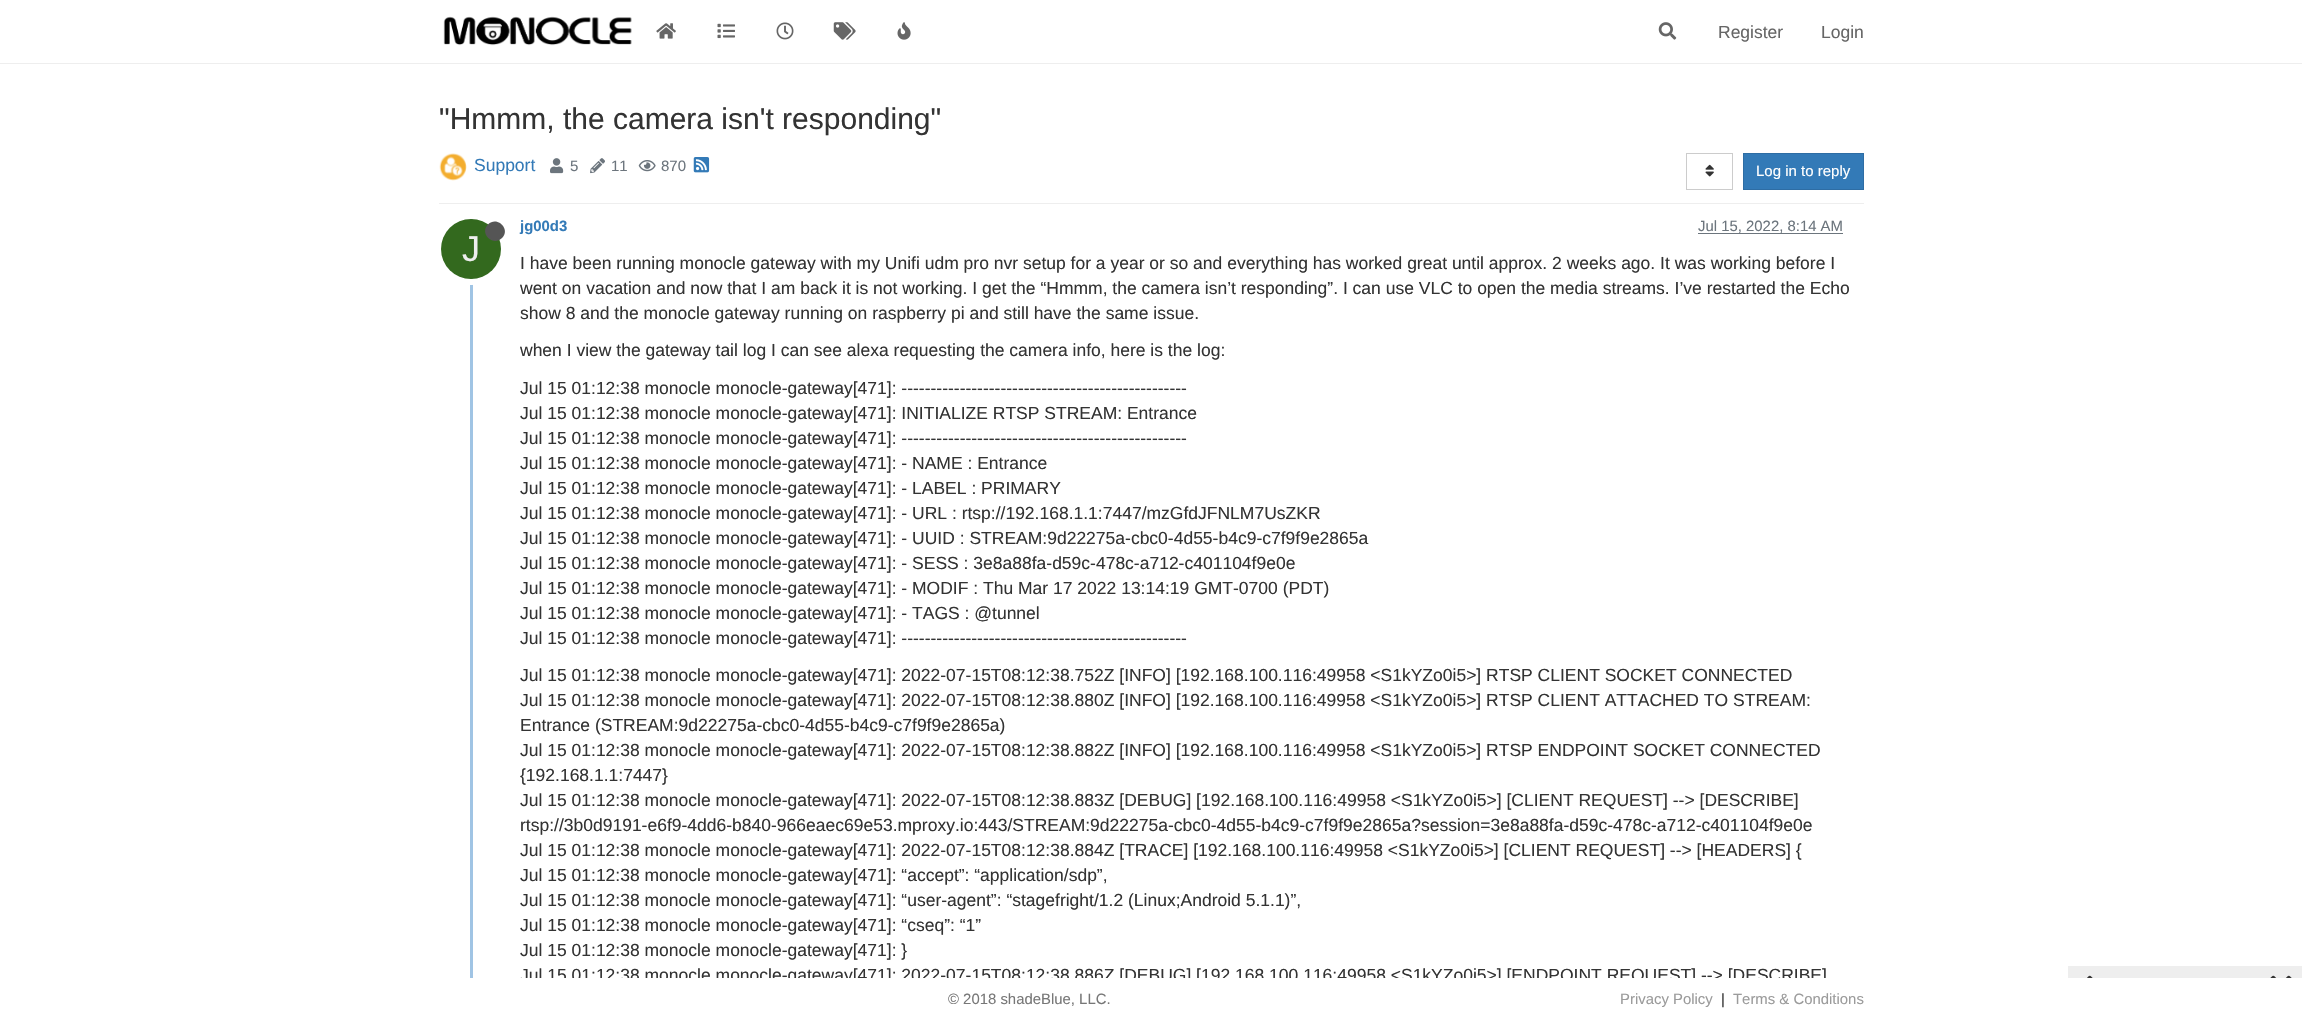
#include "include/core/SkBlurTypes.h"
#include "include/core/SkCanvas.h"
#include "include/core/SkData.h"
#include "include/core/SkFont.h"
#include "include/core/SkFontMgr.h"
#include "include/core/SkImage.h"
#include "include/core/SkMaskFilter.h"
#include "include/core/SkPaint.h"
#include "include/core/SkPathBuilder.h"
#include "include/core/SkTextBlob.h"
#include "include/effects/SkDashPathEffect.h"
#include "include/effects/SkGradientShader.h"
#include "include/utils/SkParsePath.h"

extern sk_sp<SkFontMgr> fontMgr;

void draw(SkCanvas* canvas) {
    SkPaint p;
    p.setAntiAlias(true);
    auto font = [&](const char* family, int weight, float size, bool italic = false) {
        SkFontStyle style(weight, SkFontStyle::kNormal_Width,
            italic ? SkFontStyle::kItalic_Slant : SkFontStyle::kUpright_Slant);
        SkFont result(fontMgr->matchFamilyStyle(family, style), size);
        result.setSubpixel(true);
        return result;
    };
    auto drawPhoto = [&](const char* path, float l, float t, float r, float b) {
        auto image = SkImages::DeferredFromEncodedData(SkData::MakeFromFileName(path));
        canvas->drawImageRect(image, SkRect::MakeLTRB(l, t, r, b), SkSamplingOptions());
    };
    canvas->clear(0xFFFFFFFF);
    p.setColor(0xFFEEEEEE);
    canvas->drawRect(SkRect::MakeLTRB(0, 63, 2302, 64), p);
    drawPhoto("media/1.png", 443, 16, 632, 46);
    drawPhoto("media/2.png", 656, 23, 676, 39);
    drawPhoto("media/3.png", 717, 23, 735, 39);
    drawPhoto("media/4.png", 776, 22, 794, 40);
    drawPhoto("media/5.png", 833, 22, 856, 40);
    drawPhoto("media/6.png", 897, 22, 911, 40);
    drawPhoto("media/7.png", 1658, 22, 1677, 40);
    auto font1 = font("Liberation Sans", 400, 17.5f);
    p.setColor(0xFF666666);
    canvas->drawString("Register", 1718, 38, font1, p);
    canvas->drawString("Login", 1821, 38, font1, p);
    auto font2 = font("Liberation Sans", 400, 30);
    p.setColor(0xFF333333);
    canvas->drawString("\"Hmmm, the camera isn't responding\"", 439, 129, font2, p);
    p.setColor(0xFFEEEEEE);
    canvas->drawRect(SkRect::MakeLTRB(439, 203, 1864, 204), p);
    drawPhoto("media/8.png", 439, 153, 467, 181);
    p.setColor(0xFF337AB7);
    canvas->drawString("Support", 474, 171, font1, p);
    drawPhoto("media/9.png", 550, 158, 564, 174);
    auto font3 = font("Liberation Sans", 400, 15);
    p.setColor(0xFF6C757D);
    canvas->drawString("5", 570, 171, font3, p);
    drawPhoto("media/10.png", 590, 158, 605, 174);
    canvas->drawString("11", 611, 171, font3, p);
    drawPhoto("media/11.png", 638, 160, 656, 172);
    canvas->drawString("870", 661, 171, font3, p);
    drawPhoto("media/12.png", 693, 157, 710, 173);
    p.setStyle(SkPaint::kStroke_Style);
    p.setStrokeWidth(1);
    p.setColor(0xFFCCCCCC);
    canvas->drawRect(SkRect::MakeLTRB(1686.5f, 153.5f, 1732.5f, 189.5f), p);
    drawPhoto("media/13.png", 1705, 164, 1714, 177);
    p.setStyle(SkPaint::kFill_Style);
    p.setColor(0xFF337AB7);
    canvas->drawRect(SkRect::MakeLTRB(1743.5f, 153.5f, 1863.5f, 189.5f), p);
    p.setStyle(SkPaint::kStroke_Style);
    p.setColor(0xFF2E6DA4);
    canvas->drawRect(SkRect::MakeLTRB(1743.5f, 153.5f, 1863.5f, 189.5f), p);
    p.setStyle(SkPaint::kFill_Style);
    p.setColor(0xFFFFFFFF);
    canvas->drawString("Log in to reply", 1756, 176, font3, p);
    p.setColor(0xFFA0C4E4);
    canvas->drawRect(SkRect::MakeLTRB(470, 216, 473, 978), p);
    auto font4 = font("Liberation Sans", 700, 14.9f);
    p.setColor(0xFF337AB7);
    canvas->drawString("jg00d3", 520, 231, font4, p);
    auto font5 = font("Liberation Sans", 400, 14.9f);
    p.setColor(0xFF6C757D);
    canvas->drawString("Jul 15, 2022, 8:14 AM", 1698, 231, font5, p);
    canvas->drawRect(SkRect::MakeLTRB(1698, 233, 1843, 234), p);
    p.setStyle(SkPaint::kStroke_Style);
    p.setStrokeWidth(6);
    p.setColor(0xFFFFFFFF);
    canvas->drawRoundRect(SkRect::MakeLTRB(438, 216, 505, 282), 33, 33, p);
    p.setStyle(SkPaint::kFill_Style);
    p.setColor(0xFF33691E);
    canvas->drawCircle(471, 249, 30, p);
    p.setColor(0xFF555555);
    canvas->drawPath(SkPathBuilder().moveTo(488, 224.5f).cubicTo(497, 215.5f, 511, 229, 502, 238).cubicTo(493, 247, 479, 233.5f, 488, 224.5f).close().detach(), p);
    auto font6 = font("Liberation Sans", 400, 36);
    p.setColor(0xFFEEEEEE);
    canvas->drawString("J", 462, 261, font6, p);
    p.setColor(0xFF333333);
    {
        const struct { const char* s; float x, y; } items[] = {
            {"I have been running monocle gateway with my Unifi udm pro nvr setup for a year or so and everything has worked great until approx. 2 weeks ago. It was working before I", 520, 269},
            {"went on vacation and now that I am back it is not working. I get the “Hmmm, the camera isn’t responding”. I can use VLC to open the media streams. I’ve restarted the Echo", 520, 294},
            {"show 8 and the monocle gateway running on raspberry pi and still have the same issue.", 520, 319},
            {"when I view the gateway tail log I can see alexa requesting the camera info, here is the log:", 520, 356},
            {"Jul 15 01:12:38 monocle monocle-gateway[471]: -------------------------------------------------", 520, 394},
            {"Jul 15 01:12:38 monocle monocle-gateway[471]: INITIALIZE RTSP STREAM: Entrance", 520, 419},
            {"Jul 15 01:12:38 monocle monocle-gateway[471]: -------------------------------------------------", 520, 444},
            {"Jul 15 01:12:38 monocle monocle-gateway[471]: - NAME : Entrance", 520, 469},
            {"Jul 15 01:12:38 monocle monocle-gateway[471]: - LABEL : PRIMARY", 520, 494},
            {"Jul 15 01:12:38 monocle monocle-gateway[471]: - URL : rtsp://192.168.1.1:7447/mzGfdJFNLM7UsZKR", 520, 519},
            {"Jul 15 01:12:38 monocle monocle-gateway[471]: - UUID : STREAM:9d22275a-cbc0-4d55-b4c9-c7f9f9e2865a", 520, 544},
            {"Jul 15 01:12:38 monocle monocle-gateway[471]: - SESS : 3e8a88fa-d59c-478c-a712-c401104f9e0e", 520, 569},
            {"Jul 15 01:12:38 monocle monocle-gateway[471]: - MODIF : Thu Mar 17 2022 13:14:19 GMT-0700 (PDT)", 520, 594},
            {"Jul 15 01:12:38 monocle monocle-gateway[471]: - TAGS : @tunnel", 520, 619},
            {"Jul 15 01:12:38 monocle monocle-gateway[471]: -------------------------------------------------", 520, 644},
            {"Jul 15 01:12:38 monocle monocle-gateway[471]: 2022-07-15T08:12:38.752Z [INFO] [192.168.100.116:49958 <S1kYZo0i5>] RTSP CLIENT SOCKET CONNECTED", 520, 681},
            {"Jul 15 01:12:38 monocle monocle-gateway[471]: 2022-07-15T08:12:38.880Z [INFO] [192.168.100.116:49958 <S1kYZo0i5>] RTSP CLIENT ATTACHED TO STREAM:", 520, 706},
            {"Entrance (STREAM:9d22275a-cbc0-4d55-b4c9-c7f9f9e2865a)", 520, 731},
            {"Jul 15 01:12:38 monocle monocle-gateway[471]: 2022-07-15T08:12:38.882Z [INFO] [192.168.100.116:49958 <S1kYZo0i5>] RTSP ENDPOINT SOCKET CONNECTED", 520, 756},
            {"{192.168.1.1:7447}", 520, 781},
            {"Jul 15 01:12:38 monocle monocle-gateway[471]: 2022-07-15T08:12:38.883Z [DEBUG] [192.168.100.116:49958 <S1kYZo0i5>] [CLIENT REQUEST] --> [DESCRIBE]", 520, 806},
            {"rtsp://3b0d9191-e6f9-4dd6-b840-966eaec69e53.mproxy.io:443/STREAM:9d22275a-cbc0-4d55-b4c9-c7f9f9e2865a?session=3e8a88fa-d59c-478c-a712-c401104f9e0e", 520, 831},
            {"Jul 15 01:12:38 monocle monocle-gateway[471]: 2022-07-15T08:12:38.884Z [TRACE] [192.168.100.116:49958 <S1kYZo0i5>] [CLIENT REQUEST] --> [HEADERS] {", 520, 856},
            {"Jul 15 01:12:38 monocle monocle-gateway[471]: “accept”: “application/sdp”,", 520, 881},
            {"Jul 15 01:12:38 monocle monocle-gateway[471]: “user-agent”: “stagefright/1.2 (Linux;Android 5.1.1)”,", 520, 906},
            {"Jul 15 01:12:38 monocle monocle-gateway[471]: “cseq”: “1”", 520, 931},
            {"Jul 15 01:12:38 monocle monocle-gateway[471]: }", 520, 956},
            {"Jul 15 01:12:38 monocle monocle-gateway[471]: 2022-07-15T08:12:38.886Z [DEBUG] [192.168.100.116:49958 <S1kYZo0i5>] [ENDPOINT REQUEST] --> [DESCRIBE]", 520, 981},
        };
        for (auto [s, x, y] : items) {
            canvas->drawString(s, x, y, font1, p);
        }
    }
    p.setColor(0xFFEEEEEE);
    canvas->drawRect(SkRect::MakeLTRB(2068, 966, 2302, 978), p);
    drawPhoto("media/14.png", 2087, 975, 2093, 978);
    drawPhoto("media/15.png", 2270, 975, 2292, 978);
    p.setColor(0xFFFFFFFF);
    canvas->drawRect(SkRect::MakeLTRB(520, 978, 1826, 985), p);
    p.setColor(0xFF777777);
    canvas->drawString("© 2018 shadeBlue, LLC.", 948, 1004, font5, p);
    p.setColor(0xFF9B9B9B);
    canvas->drawString("Privacy Policy", 1620, 1004, font5, p);
    p.setColor(0xFF333333);
    canvas->drawString("|", 1721, 1004, font5, p);
    p.setColor(0xFF9B9B9B);
    canvas->drawString("Terms & Conditions", 1733, 1004, font5, p);
}
